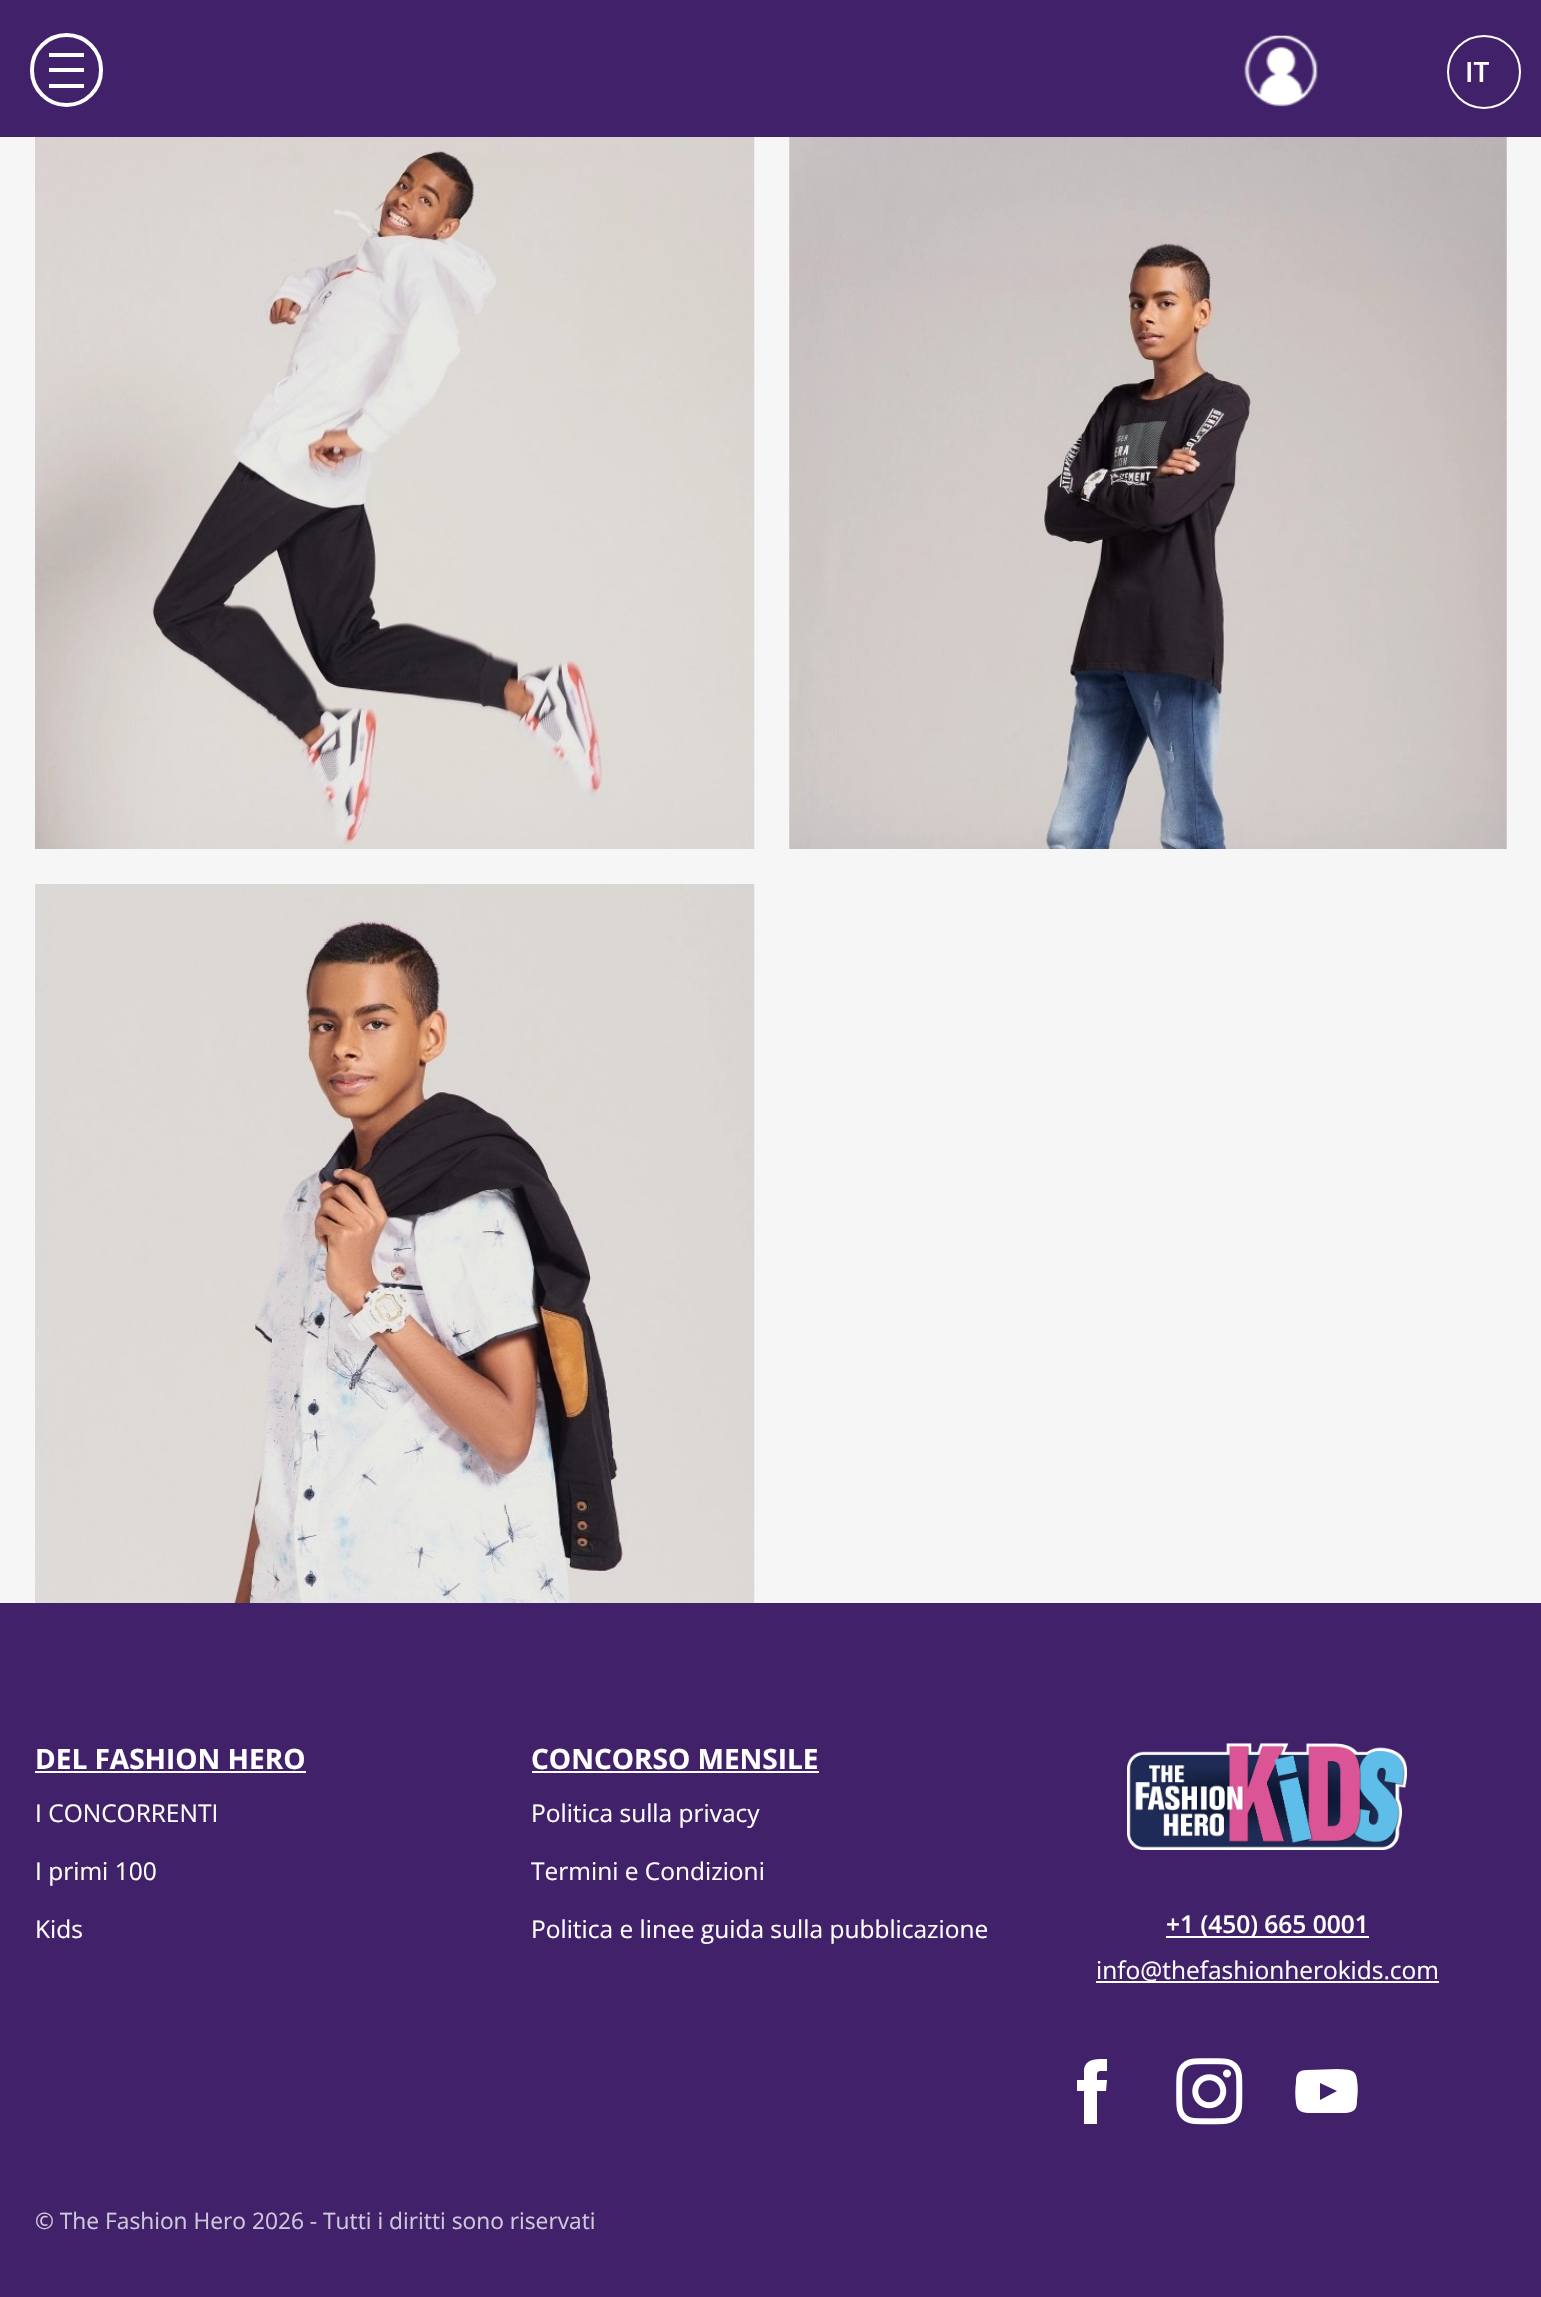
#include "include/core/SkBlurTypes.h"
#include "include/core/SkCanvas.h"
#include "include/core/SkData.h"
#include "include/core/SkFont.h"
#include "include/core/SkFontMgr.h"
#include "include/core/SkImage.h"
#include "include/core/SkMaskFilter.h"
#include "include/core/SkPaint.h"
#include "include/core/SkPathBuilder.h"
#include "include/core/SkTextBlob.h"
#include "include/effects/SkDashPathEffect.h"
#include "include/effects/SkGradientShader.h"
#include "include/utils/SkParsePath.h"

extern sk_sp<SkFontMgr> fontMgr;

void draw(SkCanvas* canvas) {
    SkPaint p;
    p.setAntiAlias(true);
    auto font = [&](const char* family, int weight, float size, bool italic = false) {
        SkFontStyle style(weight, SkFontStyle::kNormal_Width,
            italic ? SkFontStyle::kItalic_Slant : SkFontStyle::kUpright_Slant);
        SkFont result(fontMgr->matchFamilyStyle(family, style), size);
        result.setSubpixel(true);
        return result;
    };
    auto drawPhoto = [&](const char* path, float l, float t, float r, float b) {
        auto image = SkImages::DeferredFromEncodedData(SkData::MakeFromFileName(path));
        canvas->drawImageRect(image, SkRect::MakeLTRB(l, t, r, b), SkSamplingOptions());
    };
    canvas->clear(0xFFF6F6F6);
    p.setColor(0xFF41216A);
    canvas->drawRect(SkRect::MakeLTRB(0, 0, 1541, 137), p);
    p.setStyle(SkPaint::kStroke_Style);
    p.setStrokeWidth(4);
    p.setColor(0xFFFFFFFF);
    canvas->drawRoundRect(SkRect::MakeLTRB(32, 35, 101, 105), 34.5f, 34.5f, p);
    p.setStyle(SkPaint::kFill_Style);
    {
        const struct { float l, t, r, b; SkColor color; } items[] = {
            {49, 53, 84, 57, 0xFFFFFFFF},
            {49, 68, 84, 72, 0xFFFFFFFF},
            {49, 84, 84, 88, 0xFFFFFFFF},
        };
        for (auto [l, t, r, b, color] : items) {
            p.setColor(color);
            canvas->drawRect(SkRect::MakeLTRB(l, t, r, b), p);
        }
    }
    drawPhoto("media/1.png", 1244, 35, 1318, 107);
    p.setStyle(SkPaint::kStroke_Style);
    p.setStrokeWidth(2);
    canvas->drawCircle(1484, 72, 36, p);
    auto font1 = font("Open Sans", 600, 28);
    p.setStyle(SkPaint::kFill_Style);
    canvas->drawString("IT", 1465, 82, font1, p);
    drawPhoto("media/2.png", 35, 137, 755, 849);
    drawPhoto("media/3.png", 789, 137, 1507, 849);
    drawPhoto("media/4.png", 35, 884, 755, 1603);
    p.setColor(0xFF41216A);
    canvas->drawRect(SkRect::MakeLTRB(0, 1603, 1541, 2297), p);
    auto font2 = font("Open Sans", 700, 28);
    p.setColor(0xFFFFFFFF);
    canvas->drawString("DEL FASHION HERO", 35, 1769, font2, p);
    canvas->drawRect(SkRect::MakeLTRB(35, 1771, 306, 1773), p);
    auto font3 = font("Open Sans", 400, 24.5f);
    {
        const struct { const char* s; float x, y; } items[] = {
            {"I CONCORRENTI", 35, 1822},
            {"I primi 100", 35, 1880},
            {"Kids", 35, 1938},
        };
        for (auto [s, x, y] : items) {
            canvas->drawString(s, x, y, font3, p);
        }
    }
    canvas->drawString("CONCORSO MENSILE", 531, 1769, font2, p);
    canvas->drawRect(SkRect::MakeLTRB(532, 1771, 819, 1773), p);
    {
        const struct { const char* s; float x, y; } items[] = {
            {"Politica sulla privacy", 531, 1822},
            {"Termini e Condizioni", 531, 1880},
            {"Politica e linee guida sulla pubblicazione", 531, 1938},
        };
        for (auto [s, x, y] : items) {
            canvas->drawString(s, x, y, font3, p);
        }
    }
    drawPhoto("media/5.png", 1127, 1743, 1407, 1850);
    canvas->drawRect(SkRect::MakeLTRB(1166, 1936, 1369, 1938), p);
    auto font4 = font("Open Sans", 600, 24.5f);
    canvas->drawString("+1 (450) 665 0001", 1166, 1933, font4, p);
    canvas->drawRect(SkRect::MakeLTRB(1096, 1981, 1439, 1983), p);
    canvas->drawString("info@thefashionherokids.com", 1096, 1979, font3, p);
    canvas->drawPath(SkPathBuilder().moveTo(1084, 2080).lineTo(1077, 2080).lineTo(1077, 2091).lineTo(1084, 2091).lineTo(1084, 2124).lineTo(1097, 2124).lineTo(1097, 2091).lineTo(1106, 2091).lineTo(1107, 2080).lineTo(1097, 2080).cubicTo(1097, 2070, 1096, 2071, 1107, 2071).lineTo(1107, 2059).cubicTo(1098, 2059, 1086, 2058, 1084, 2069).close().detach(), p);
    drawPhoto("media/6.png", 1176, 2058, 1243, 2125);
    canvas->drawPath(SkPathBuilder().moveTo(1357, 2080).cubicTo(1356, 2068, 1347, 2070, 1338, 2069).lineTo(1307, 2070).cubicTo(1298, 2070, 1296, 2074, 1296, 2082).cubicTo(1295, 2089, 1295, 2096, 1296, 2103).cubicTo(1297, 2114, 1306, 2113, 1316, 2113).lineTo(1346, 2113).cubicTo(1355, 2112, 1357, 2109, 1357, 2100).cubicTo(1358, 2093, 1358, 2086, 1357, 2080).close().moveTo(1320, 2100).lineTo(1320, 2083).lineTo(1337, 2091).close().detach(), p);
    auto font5 = font("Open Sans", 400, 22.75f);
    p.setColor(0xFFD0C8DA);
    canvas->drawString("© The Fashion Hero 2026 - Tutti i diritti sono riservati", 35, 2229, font5, p);
}
